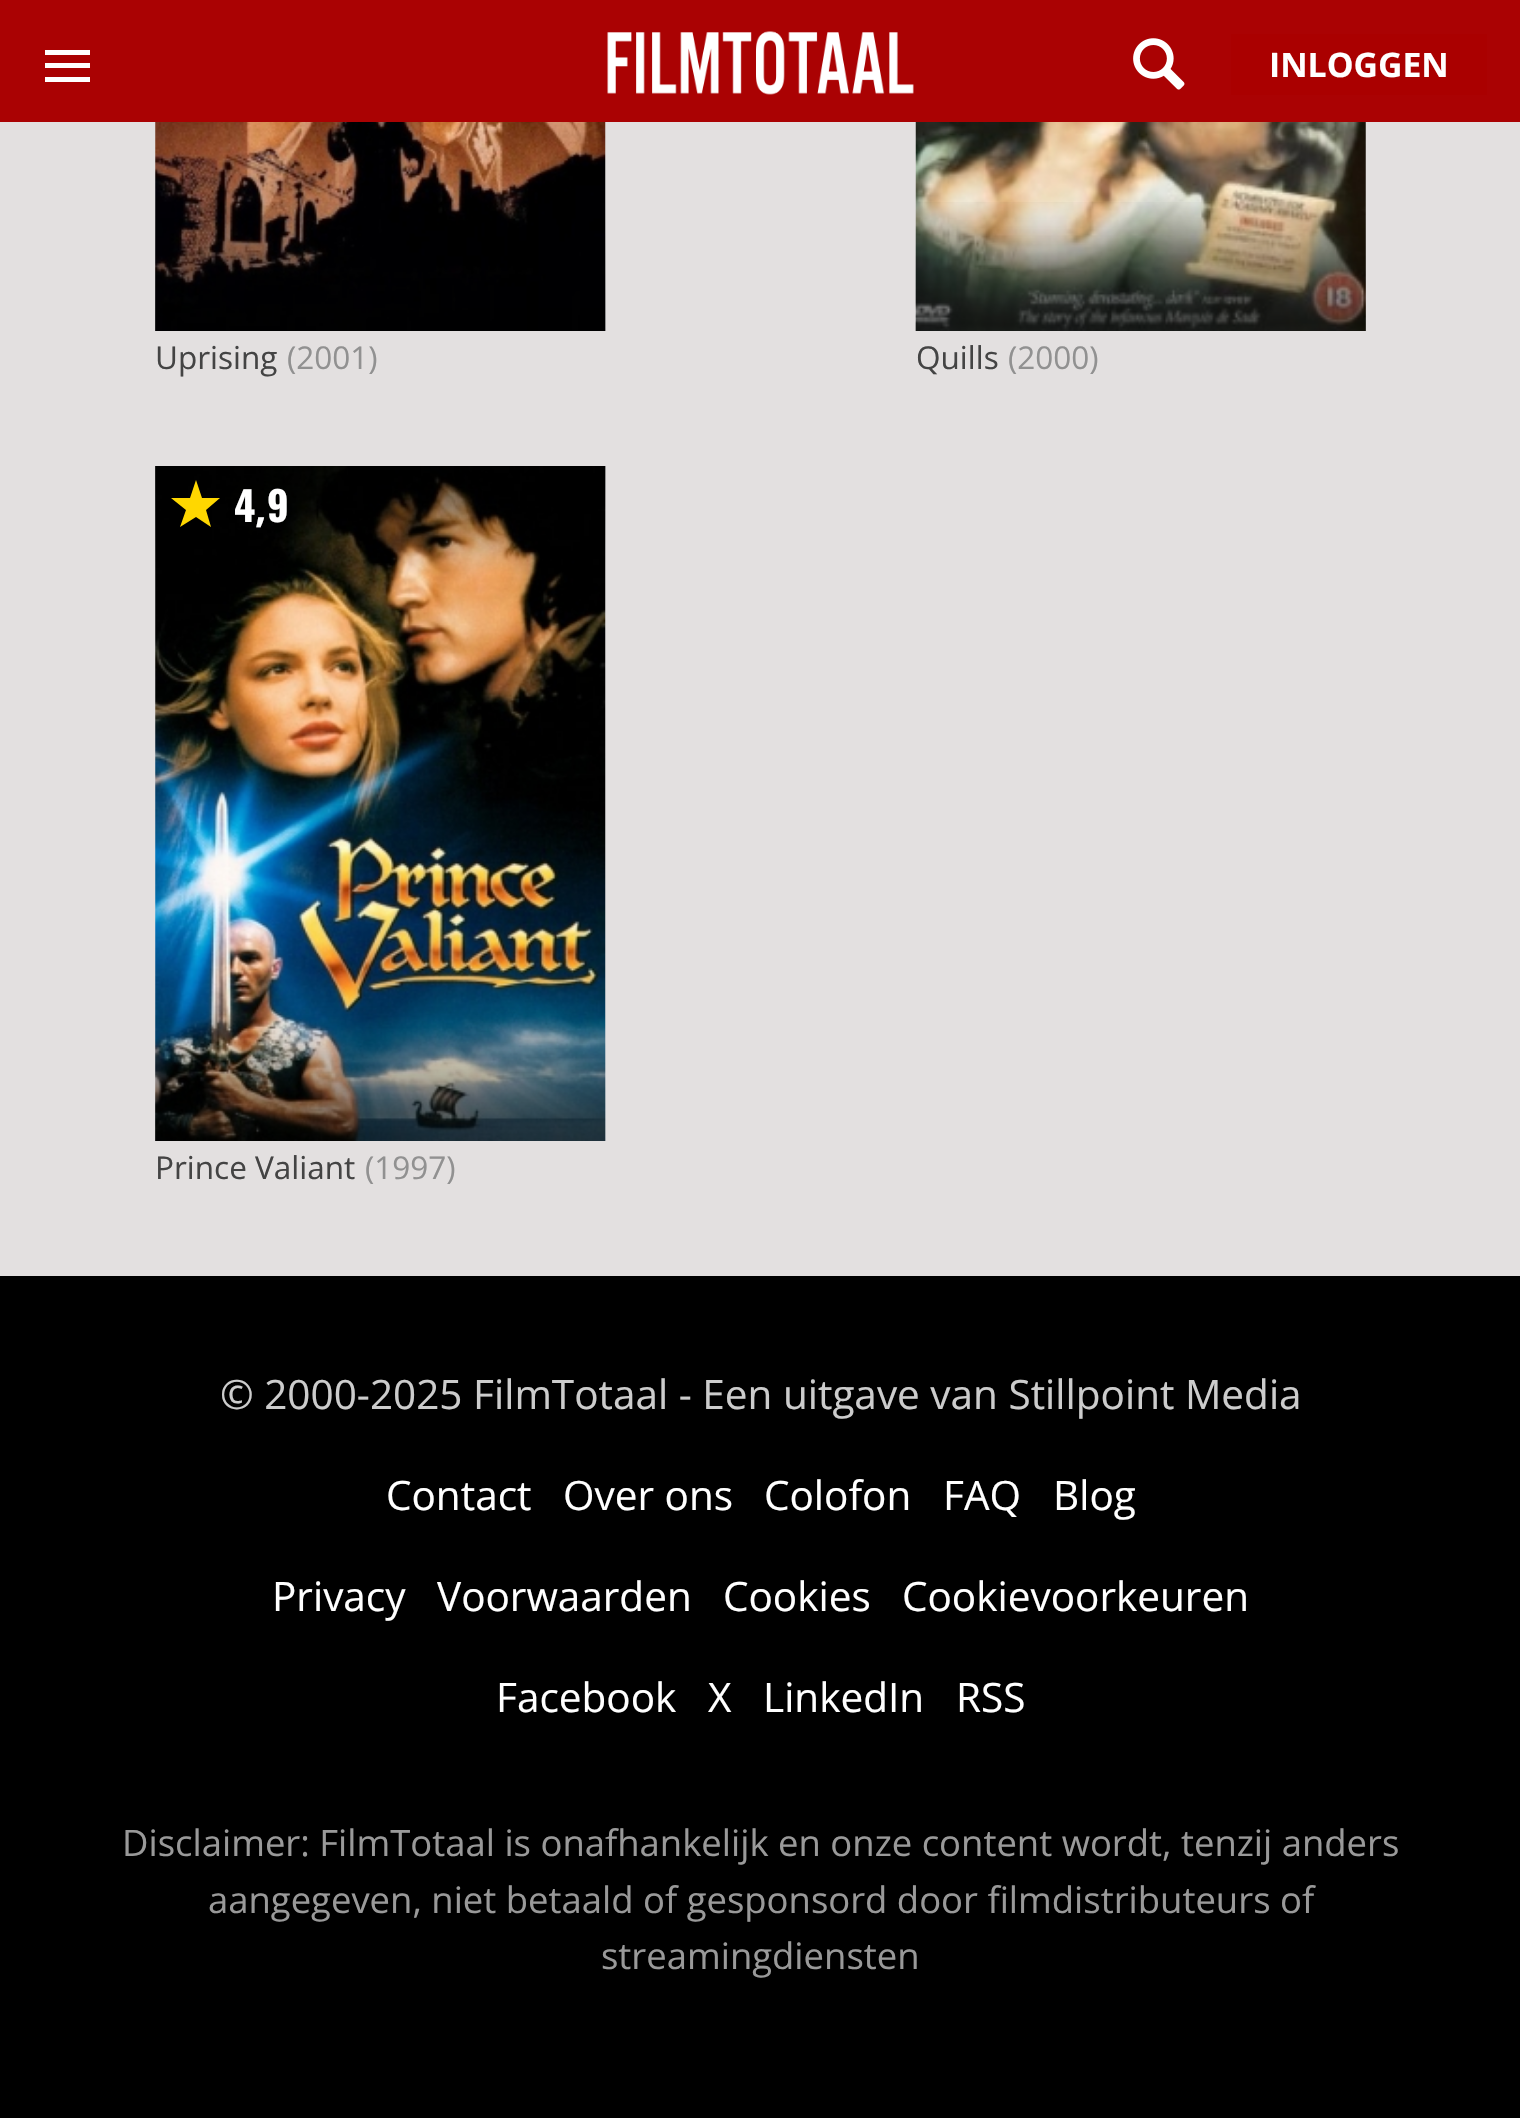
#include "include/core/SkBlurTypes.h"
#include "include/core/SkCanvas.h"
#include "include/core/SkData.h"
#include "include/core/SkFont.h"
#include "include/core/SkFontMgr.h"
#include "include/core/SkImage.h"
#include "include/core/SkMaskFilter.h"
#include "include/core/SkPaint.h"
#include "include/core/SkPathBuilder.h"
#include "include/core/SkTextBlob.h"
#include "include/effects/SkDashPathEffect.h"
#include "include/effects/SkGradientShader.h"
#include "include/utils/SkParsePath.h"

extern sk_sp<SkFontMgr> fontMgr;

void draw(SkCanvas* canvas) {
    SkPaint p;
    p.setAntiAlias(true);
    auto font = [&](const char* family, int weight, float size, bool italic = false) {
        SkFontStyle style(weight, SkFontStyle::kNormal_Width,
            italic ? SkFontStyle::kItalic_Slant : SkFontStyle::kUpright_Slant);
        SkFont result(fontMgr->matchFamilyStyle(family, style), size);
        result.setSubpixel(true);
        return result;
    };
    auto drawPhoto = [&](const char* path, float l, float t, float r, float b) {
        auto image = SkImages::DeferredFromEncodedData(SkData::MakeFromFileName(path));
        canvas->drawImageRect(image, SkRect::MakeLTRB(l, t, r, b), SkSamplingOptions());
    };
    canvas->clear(0xFFE3E0E0);
    {
        const struct { float l, t, r, b; SkColor color; } items[] = {
            {0, 0, 1520, 122, 0xFFAA0203},
            {45, 63, 90, 68, 0xFFFFFFFF},
            {45, 50, 90, 55, 0xFFFFFFFF},
            {45, 77, 90, 82, 0xFFFFFFFF},
        };
        for (auto [l, t, r, b, color] : items) {
            p.setColor(color);
            canvas->drawRect(SkRect::MakeLTRB(l, t, r, b), p);
        }
    }
    drawPhoto("media/1.png", 607, 31, 914, 95);
    drawPhoto("media/2.png", 1133, 38, 1185, 90);
    p.setColor(0xFFAA0000);
    canvas->drawRect(SkRect::MakeLTRB(1231, 34, 1487, 95), p);
    auto font1 = font("Open Sans", 700, 33.75f);
    p.setColor(0xFFFFFFFF);
    canvas->drawString("INLOGGEN", 1269, 77, font1, p);
    drawPhoto("media/3.png", 155, 122, 606, 331);
    drawPhoto("media/4.png", 155, 202, 606, 331);
    auto font2 = font("Open Sans", 400, 31.5f);
    p.setColor(0xFF444444);
    canvas->drawString("Uprising", 155, 369, font2, p);
    p.setColor(0xFF919191);
    canvas->drawString("(2001)", 287, 369, font2, p);
    drawPhoto("media/5.png", 915, 122, 1366, 331);
    drawPhoto("media/6.png", 915, 202, 1366, 331);
    p.setColor(0xFF444444);
    canvas->drawString("Quills", 916, 369, font2, p);
    p.setColor(0xFF919191);
    canvas->drawString("(2000)", 1008, 369, font2, p);
    drawPhoto("media/7.png", 155, 466, 606, 1141);
    drawPhoto("media/8.png", 155, 466, 606, 1141);
    p.setColor(0xFFFFD700);
    canvas->drawPath(SkPathBuilder().moveTo(180, 527).lineTo(186, 510).lineTo(171, 498).lineTo(190, 498).lineTo(196, 480).lineTo(202, 498).lineTo(220, 498).lineTo(206, 510).lineTo(211, 527).lineTo(196, 517).close().detach(), p);
    auto font3 = font("Oswald", 700, 40.5f);
    p.setColor(0xFFFFFFFF);
    canvas->drawString("4", 234, 522, font3, p);
    auto font4 = font("Open Sans", 700, 40.5f);
    canvas->drawString(",", 255, 522, font4, p);
    canvas->drawString("9", 267, 522, font3, p);
    p.setColor(0xFF444444);
    canvas->drawString("Prince Valiant", 155, 1179, font2, p);
    p.setColor(0xFF919191);
    canvas->drawString("(1997)", 365, 1179, font2, p);
    p.setColor(0xFF000000);
    canvas->drawRect(SkRect::MakeLTRB(0, 1276, 1520, 2118), p);
    auto font5 = font("Open Sans", 400, 40.5f);
    p.setColor(0xFFCCCCCC);
    canvas->drawString("© 2000-2025 FilmTotaal - Een uitgave van Stillpoint Media", 220, 1409, font5, p);
    p.setColor(0xFFFFFFFF);
    {
        const struct { const char* s; float x, y; } items[] = {
            {"Contact", 386, 1510},
            {"Over ons", 563, 1510},
            {"Colofon", 764, 1510},
            {"FAQ", 943, 1510},
            {"Blog", 1053, 1510},
            {"Privacy", 272, 1611},
            {"Voorwaarden", 437, 1611},
            {"Cookies", 723, 1611},
            {"Cookievoorkeuren", 902, 1611},
            {"Facebook", 496, 1712},
            {"X", 708, 1712},
            {"LinkedIn", 763, 1712},
            {"RSS", 956, 1712},
        };
        for (auto [s, x, y] : items) {
            canvas->drawString(s, x, y, font5, p);
        }
    }
    auto font6 = font("Open Sans", 400, 36.45f);
    p.setColor(0xFF999999);
    {
        const struct { const char* s; float x, y; } items[] = {
            {"Disclaimer: FilmTotaal is onafhankelijk en onze content wordt, tenzij anders", 122, 1856},
            {"aangegeven, niet betaald of gesponsord door filmdistributeurs of", 208, 1913},
            {"streamingdiensten", 601, 1969},
        };
        for (auto [s, x, y] : items) {
            canvas->drawString(s, x, y, font6, p);
        }
    }
}
